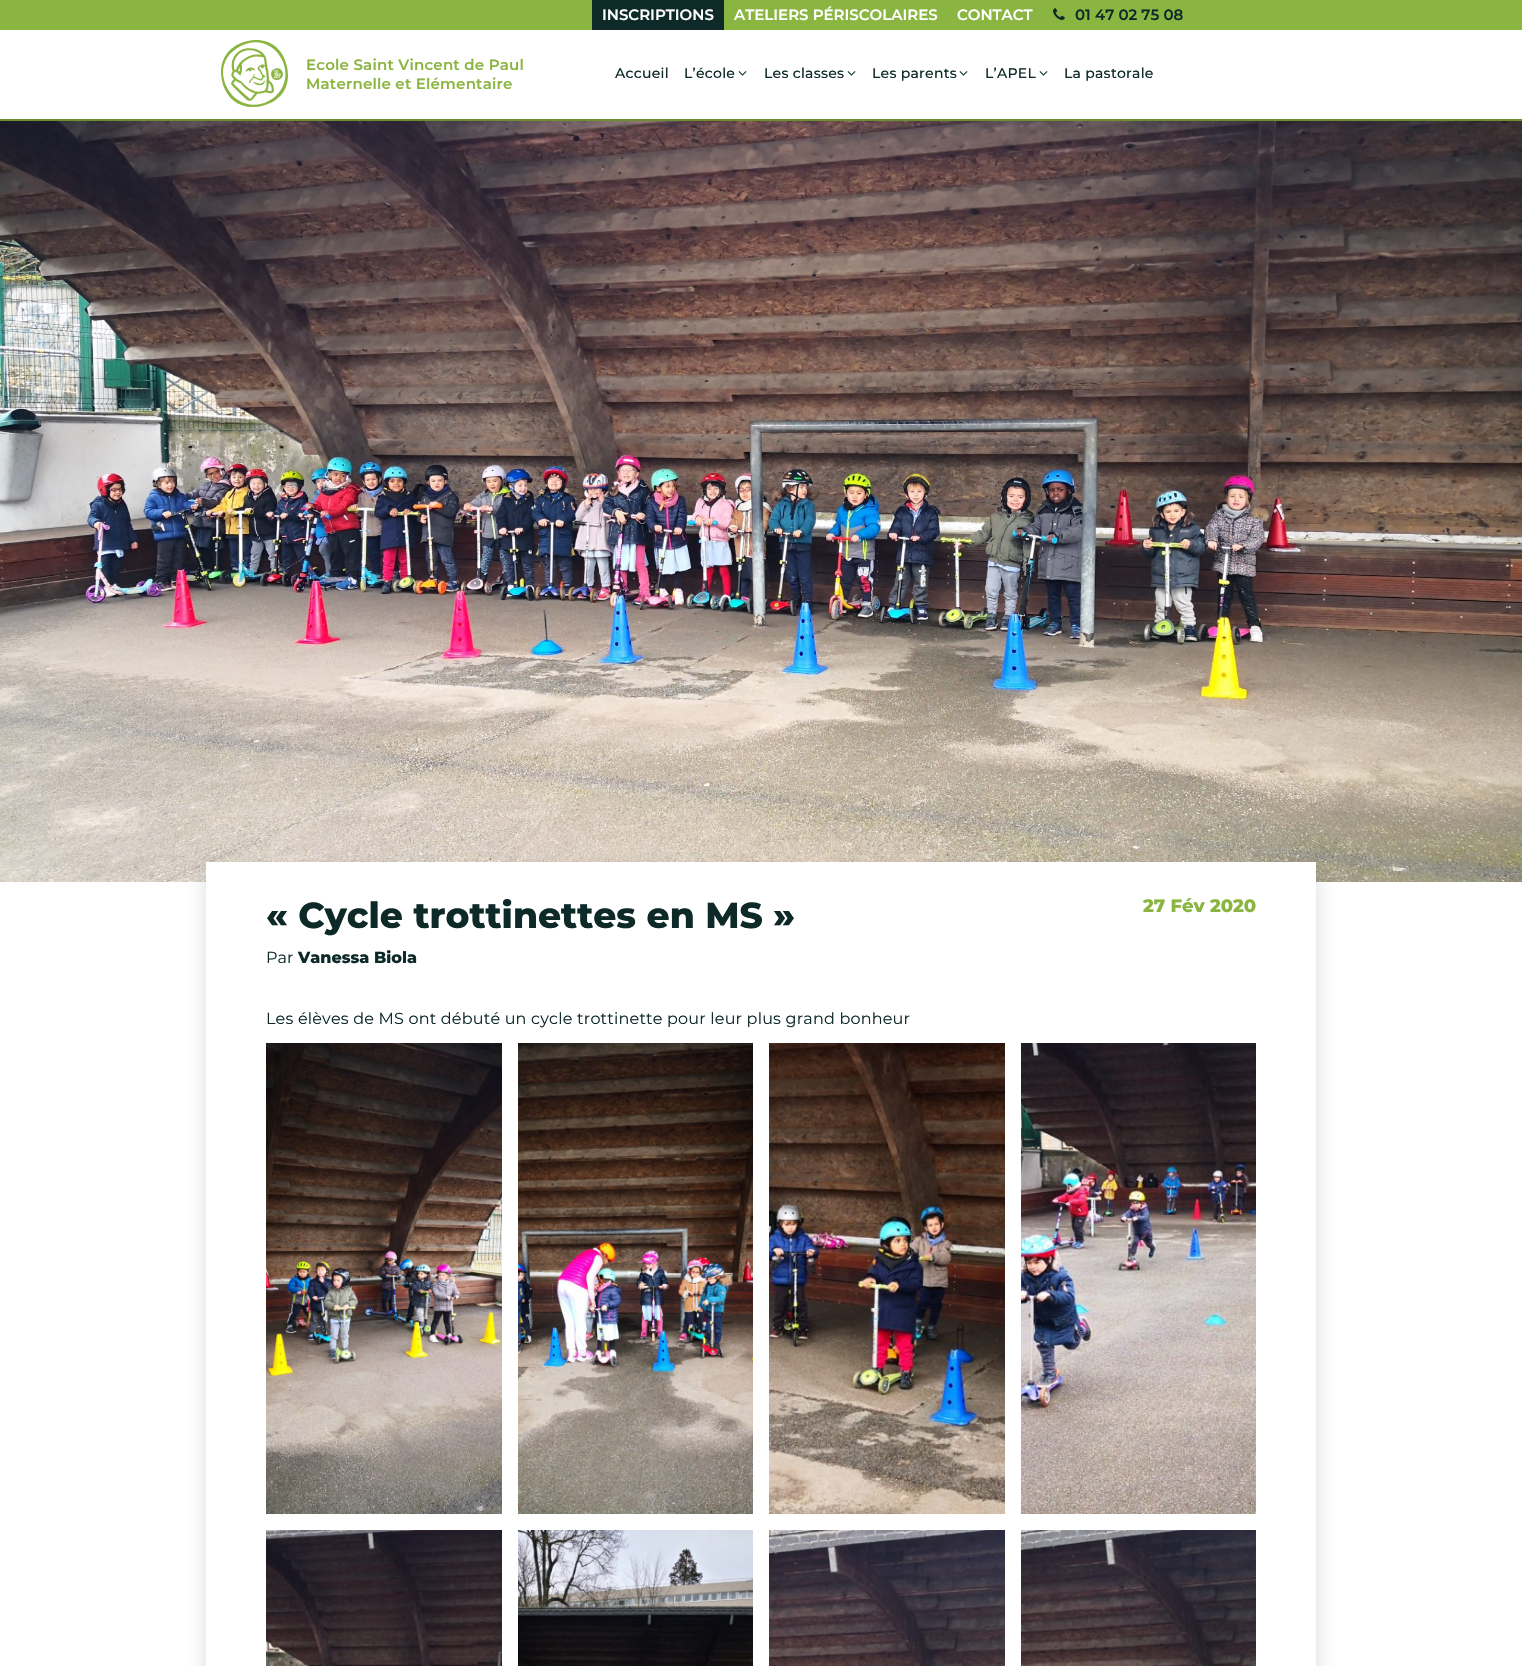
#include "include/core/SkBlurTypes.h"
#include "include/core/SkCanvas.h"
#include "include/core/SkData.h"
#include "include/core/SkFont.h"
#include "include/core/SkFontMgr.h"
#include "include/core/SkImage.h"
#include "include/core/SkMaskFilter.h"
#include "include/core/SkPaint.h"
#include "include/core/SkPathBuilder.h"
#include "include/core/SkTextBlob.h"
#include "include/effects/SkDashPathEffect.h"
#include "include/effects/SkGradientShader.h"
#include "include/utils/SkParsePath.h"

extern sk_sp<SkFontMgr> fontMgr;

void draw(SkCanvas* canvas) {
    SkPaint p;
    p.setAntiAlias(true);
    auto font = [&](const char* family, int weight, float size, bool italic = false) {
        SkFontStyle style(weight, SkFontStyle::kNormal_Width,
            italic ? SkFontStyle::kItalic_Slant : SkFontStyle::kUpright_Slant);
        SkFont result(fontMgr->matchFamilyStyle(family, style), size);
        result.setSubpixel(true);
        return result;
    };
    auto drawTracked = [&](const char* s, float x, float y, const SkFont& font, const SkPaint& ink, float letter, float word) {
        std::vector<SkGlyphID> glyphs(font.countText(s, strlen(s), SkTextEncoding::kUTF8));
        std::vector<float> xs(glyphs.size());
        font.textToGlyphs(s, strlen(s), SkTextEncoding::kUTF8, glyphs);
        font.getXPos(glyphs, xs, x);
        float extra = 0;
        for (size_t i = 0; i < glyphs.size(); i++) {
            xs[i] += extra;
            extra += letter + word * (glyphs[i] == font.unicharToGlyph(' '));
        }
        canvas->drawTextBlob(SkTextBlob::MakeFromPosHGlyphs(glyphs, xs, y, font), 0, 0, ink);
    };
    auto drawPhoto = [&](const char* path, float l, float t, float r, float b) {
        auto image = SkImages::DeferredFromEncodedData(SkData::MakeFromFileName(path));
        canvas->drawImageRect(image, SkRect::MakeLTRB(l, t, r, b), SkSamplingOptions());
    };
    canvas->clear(0xFFFFFFFF);
    p.setColor(0xFF8AB540);
    canvas->drawRect(SkRect::MakeLTRB(0, 0, 1522, 30), p);
    p.setColor(0xFF0E2A28);
    canvas->drawRect(SkRect::MakeLTRB(592, 0, 724, 30), p);
    auto font1 = font("Montserrat", 600, 15);
    p.setColor(0xFFFFFFFF);
    {
        const struct { const char* s; float x, y; } items[] = {
            {"INSCRIPTIONS", 602, 20},
            {"ATELIERS PÉRISCOLAIRES", 734, 20},
            {"CONTACT", 957, 20},
        };
        for (auto [s, x, y] : items) {
            canvas->drawString(s, x, y, font1, p);
        }
    }
    drawPhoto("media/1.png", 1053, 8, 1065, 20);
    p.setColor(0xFF0E2A28);
    canvas->drawString("01 47 02 75 08", 1075, 20, font1, p);
    drawPhoto("media/2.png", 221, 40, 288, 107);
    p.setColor(0xFF8AB540);
    drawTracked("Ecole Saint Vincent de Paul", 306, 70, font1, p, 0.2f, 0);
    drawTracked("Maternelle et Elémentaire", 306, 89, font1, p, 0.2f, 0);
    auto font2 = font("Montserrat", 500, 14);
    p.setColor(0xFF0E2A28);
    drawTracked("Accueil", 615, 78, font2, p, 0.25f, 0);
    drawTracked("L’école", 684, 78, font2, p, 0.25f, 0);
    drawPhoto("media/3.png", 738, 71, 747, 76);
    drawTracked("Les classes", 764, 78, font2, p, 0.25f, 0);
    drawPhoto("media/3.png", 847, 71, 856, 76);
    drawTracked("Les parents", 872, 78, font2, p, 0.25f, 0);
    drawPhoto("media/3.png", 959, 71, 968, 76);
    drawTracked("L’APEL", 985, 78, font2, p, 0.25f, 0);
    drawPhoto("media/3.png", 1039, 71, 1048, 76);
    drawTracked("La pastorale", 1064, 78, font2, p, 0.25f, 0);
    p.setColor(0xFF708D30);
    canvas->drawRect(SkRect::MakeLTRB(0, 119, 1522, 121), p);
    drawPhoto("media/4.png", 0, 121, 1522, 882);
    p.setColor(0x290E2A28);
    p.setMaskFilter(SkMaskFilter::MakeBlur(kNormal_SkBlurStyle, 10));
    canvas->drawRect(SkRect::MakeLTRB(206, 872, 1316, 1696), p);
    p.setMaskFilter(nullptr);
    p.setColor(0xFFFFFFFF);
    canvas->drawRect(SkRect::MakeLTRB(206, 862, 1316, 1666), p);
    auto font3 = font("Montserrat", 800, 36);
    p.setColor(0xFF0E2A28);
    canvas->drawString("« Cycle trottinettes en MS »", 266, 928, font3, p);
    auto font4 = font("Montserrat", 800, 18);
    p.setColor(0xFF8AB540);
    canvas->drawString("27 Fév 2020", 1143, 912, font4, p);
    auto font5 = font("Montserrat", 400, 16);
    p.setColor(0xFF0E2A28);
    canvas->drawString("Par", 266, 963, font5, p);
    auto font6 = font("Montserrat", 800, 16);
    canvas->drawString("Vanessa Biola", 298, 963, font6, p);
    drawTracked("Les élèves de MS ont débuté un cycle trottinette pour leur plus grand bonheur", 266, 1024, font5, p, 0.2f, 0);
    drawPhoto("media/5.png", 266, 1043, 502, 1514);
    drawPhoto("media/6.png", 518, 1043, 753, 1514);
    drawPhoto("media/7.png", 769, 1043, 1005, 1514);
    drawPhoto("media/8.png", 1021, 1043, 1256, 1514);
    drawPhoto("media/9.png", 266, 1530, 502, 1666);
    drawPhoto("media/10.png", 518, 1530, 753, 1666);
    drawPhoto("media/11.png", 769, 1530, 1005, 1666);
    drawPhoto("media/12.png", 1021, 1530, 1256, 1666);
}
